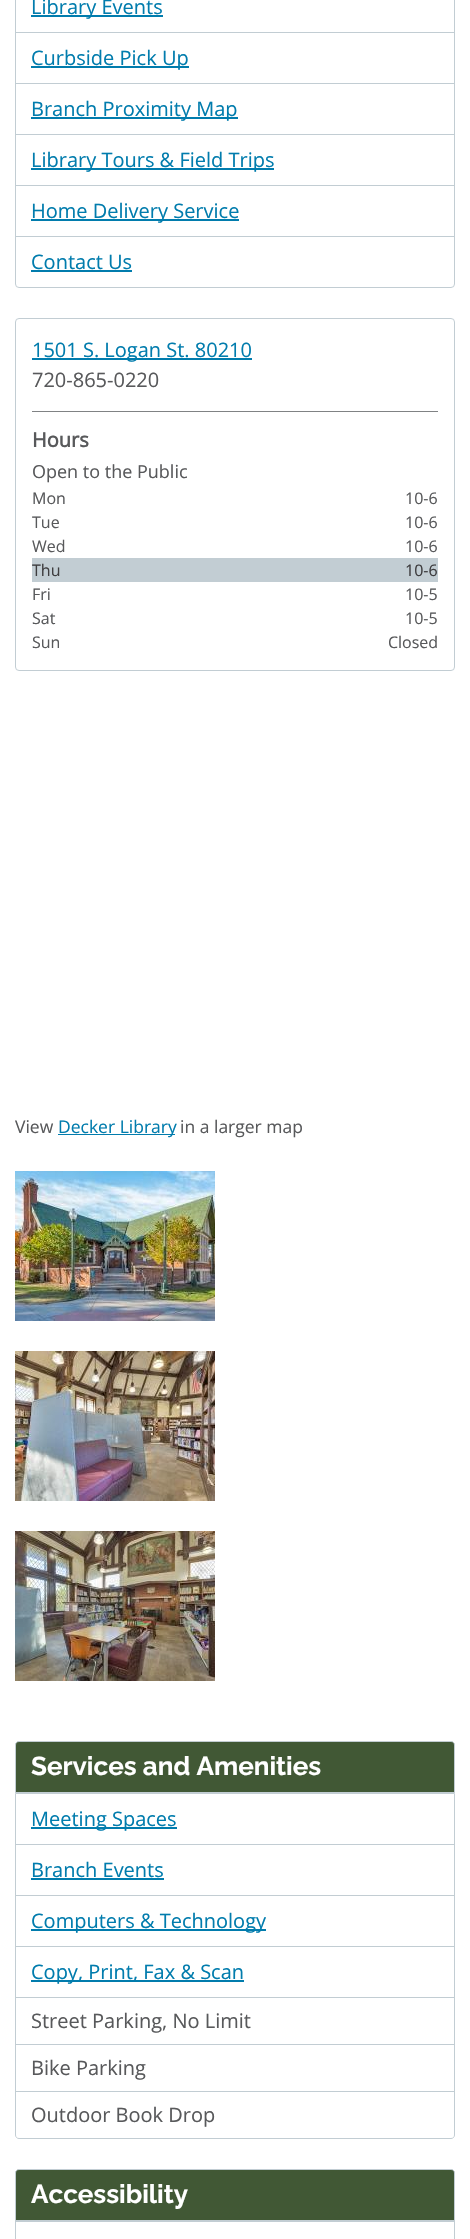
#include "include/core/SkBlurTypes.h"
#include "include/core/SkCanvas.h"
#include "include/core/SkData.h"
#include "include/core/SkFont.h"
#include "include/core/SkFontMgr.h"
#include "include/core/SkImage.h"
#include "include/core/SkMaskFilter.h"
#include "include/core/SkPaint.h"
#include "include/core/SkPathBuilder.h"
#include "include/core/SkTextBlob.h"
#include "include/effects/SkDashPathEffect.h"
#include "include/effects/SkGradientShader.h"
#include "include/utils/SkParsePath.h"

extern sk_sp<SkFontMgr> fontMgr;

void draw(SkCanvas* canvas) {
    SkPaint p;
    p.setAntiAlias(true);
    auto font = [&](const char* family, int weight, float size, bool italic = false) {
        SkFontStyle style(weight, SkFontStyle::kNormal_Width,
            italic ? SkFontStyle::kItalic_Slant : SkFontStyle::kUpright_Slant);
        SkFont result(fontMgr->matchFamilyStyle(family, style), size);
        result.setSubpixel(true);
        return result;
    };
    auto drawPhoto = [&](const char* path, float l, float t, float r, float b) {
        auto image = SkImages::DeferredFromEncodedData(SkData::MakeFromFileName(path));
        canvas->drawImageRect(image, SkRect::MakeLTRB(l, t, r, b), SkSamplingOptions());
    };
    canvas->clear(0xFFFFFFFF);
    p.setStyle(SkPaint::kStroke_Style);
    p.setStrokeWidth(1);
    p.setColor(0xFFC2CDD3);
    canvas->drawRoundRect(SkRect::MakeLTRB(15.5f, -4.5f, 454.5f, 287.5f), 3.5f, 3.5f, p);
    p.setStyle(SkPaint::kFill_Style);
    canvas->drawRect(SkRect::MakeLTRB(16, 32, 454, 33), p);
    p.setColor(0xFF017CAD);
    canvas->drawRect(SkRect::MakeLTRB(31, 15, 163, 17), p);
    auto font1 = font("Open Sans", 400, 20);
    canvas->drawString("Library Events", 31, 14, font1, p);
    p.setColor(0xFFC2CDD3);
    canvas->drawRect(SkRect::MakeLTRB(16, 83, 454, 84), p);
    p.setColor(0xFF017CAD);
    canvas->drawRect(SkRect::MakeLTRB(31, 66, 189, 68), p);
    canvas->drawString("Curbside Pick Up", 31, 65, font1, p);
    p.setColor(0xFFC2CDD3);
    canvas->drawRect(SkRect::MakeLTRB(16, 134, 454, 135), p);
    p.setColor(0xFF017CAD);
    canvas->drawRect(SkRect::MakeLTRB(31, 117, 238, 119), p);
    canvas->drawString("Branch Proximity Map", 31, 116, font1, p);
    p.setColor(0xFFC2CDD3);
    canvas->drawRect(SkRect::MakeLTRB(16, 185, 454, 186), p);
    p.setColor(0xFF017CAD);
    canvas->drawRect(SkRect::MakeLTRB(31, 168, 274, 170), p);
    canvas->drawString("Library Tours & Field Trips", 31, 167, font1, p);
    p.setColor(0xFFC2CDD3);
    canvas->drawRect(SkRect::MakeLTRB(16, 236, 454, 237), p);
    p.setColor(0xFF017CAD);
    canvas->drawRect(SkRect::MakeLTRB(31, 219, 239, 221), p);
    canvas->drawString("Home Delivery Service", 31, 218, font1, p);
    canvas->drawString("Contact Us", 31, 269, font1, p);
    canvas->drawRect(SkRect::MakeLTRB(31, 270, 132, 272), p);
    p.setStyle(SkPaint::kStroke_Style);
    p.setColor(0xFFC2CDD3);
    canvas->drawRoundRect(SkRect::MakeLTRB(15.5f, 318.5f, 454.5f, 670.5f), 3.5f, 3.5f, p);
    p.setStyle(SkPaint::kFill_Style);
    p.setColor(0xFF017CAD);
    canvas->drawRect(SkRect::MakeLTRB(32, 358, 252, 360), p);
    canvas->drawString("1501 S. Logan St. 80210", 32, 357, font1, p);
    p.setColor(0xFF58595B);
    canvas->drawString("720-865-0220", 32, 387, font1, p);
    p.setColor(0xFF808284);
    canvas->drawRect(SkRect::MakeLTRB(32, 411, 438, 412), p);
    auto font2 = font("Open Sans", 700, 20);
    p.setColor(0xFF58595B);
    canvas->drawString("Hours", 32, 447, font2, p);
    auto font3 = font("Open Sans", 400, 18);
    canvas->drawString("Open to the Public", 32, 478, font3, p);
    auto font4 = font("Open Sans", 400, 16);
    {
        const struct { const char* s; float x, y; } items[] = {
            {"Mon", 32, 504},
            {"10-6", 405, 504},
            {"Tue", 32, 528},
            {"10-6", 405, 528},
            {"Wed", 32, 552},
            {"10-6", 405, 552},
        };
        for (auto [s, x, y] : items) {
            canvas->drawString(s, x, y, font4, p);
        }
    }
    p.setColor(0xFFC2CDD3);
    canvas->drawRect(SkRect::MakeLTRB(32, 558, 438, 582), p);
    p.setColor(0xFF3E3D3F);
    canvas->drawString("Thu", 32, 576, font4, p);
    canvas->drawString("10-6", 405, 576, font4, p);
    p.setColor(0xFF58595B);
    {
        const struct { const char* s; float x, y; } items[] = {
            {"Fri", 32, 600},
            {"10-5", 405, 600},
            {"Sat", 32, 624},
            {"10-5", 405, 624},
            {"Sun", 32, 648},
            {"Closed", 388, 648},
        };
        for (auto [s, x, y] : items) {
            canvas->drawString(s, x, y, font4, p);
        }
    }
    auto font5 = font("Open Sans", 400, 17.5f);
    canvas->drawString("View", 15, 1133, font5, p);
    p.setColor(0xFF017CAD);
    canvas->drawRect(SkRect::MakeLTRB(58, 1134, 175, 1135), p);
    canvas->drawString("Decker Library", 58, 1133, font5, p);
    p.setColor(0xFF58595B);
    canvas->drawString("in a larger map", 180, 1133, font5, p);
    drawPhoto("media/1.png", 15, 1171, 215, 1321);
    drawPhoto("media/2.png", 15, 1351, 215, 1501);
    drawPhoto("media/3.png", 15, 1531, 215, 1681);
    p.setColor(0xFF415835);
    canvas->drawPath(SkPathBuilder().moveTo(19, 1741.5f).lineTo(451, 1741.5f).cubicTo(453, 1741.5f, 454.5f, 1743, 454.5f, 1745).lineTo(454.5f, 1792.5f).lineTo(15.5f, 1792.5f).lineTo(15.5f, 1745).cubicTo(15.5f, 1743, 17, 1741.5f, 19, 1741.5f).close().detach(), p);
    p.setStyle(SkPaint::kStroke_Style);
    p.setColor(0xFFC2CDD3);
    canvas->drawPath(SkPathBuilder().moveTo(19, 1741.5f).lineTo(451, 1741.5f).cubicTo(453, 1741.5f, 454.5f, 1743, 454.5f, 1745).lineTo(454.5f, 1792.5f).lineTo(15.5f, 1792.5f).lineTo(15.5f, 1745).cubicTo(15.5f, 1743, 17, 1741.5f, 19, 1741.5f).close().detach(), p);
    auto font6 = font("Raleway", 700, 26);
    p.setStyle(SkPaint::kFill_Style);
    p.setColor(0xFFFFFFFF);
    canvas->drawString("Services and Amenities", 31, 1775, font6, p);
    p.setStyle(SkPaint::kStroke_Style);
    p.setColor(0xFFC2CDD3);
    canvas->drawPath(SkPathBuilder().moveTo(15.5f, 1793.5f).lineTo(454.5f, 1793.5f).lineTo(454.5f, 2135).cubicTo(454.5f, 2137, 453, 2138.5f, 451, 2138.5f).lineTo(19, 2138.5f).cubicTo(17, 2138.5f, 15.5f, 2137, 15.5f, 2135).close().detach(), p);
    p.setStyle(SkPaint::kFill_Style);
    canvas->drawRect(SkRect::MakeLTRB(16, 1844, 454, 1845), p);
    p.setColor(0xFF017CAD);
    canvas->drawRect(SkRect::MakeLTRB(31, 1827, 177, 1829), p);
    canvas->drawString("Meeting Spaces", 31, 1826, font1, p);
    p.setColor(0xFFC2CDD3);
    canvas->drawRect(SkRect::MakeLTRB(16, 1895, 454, 1896), p);
    p.setColor(0xFF017CAD);
    canvas->drawString("Branch Events", 31, 1877, font1, p);
    {
        const struct { float l, t, r, b; SkColor color; } items[] = {
            {31, 1878, 164, 1880, 0xFF017CAD},
            {16, 1946, 454, 1947, 0xFFC2CDD3},
            {31, 1929, 266, 1931, 0xFF017CAD},
        };
        for (auto [l, t, r, b, color] : items) {
            p.setColor(color);
            canvas->drawRect(SkRect::MakeLTRB(l, t, r, b), p);
        }
    }
    canvas->drawString("Computers & Technology", 31, 1928, font1, p);
    p.setColor(0xFFC2CDD3);
    canvas->drawRect(SkRect::MakeLTRB(16, 1997, 454, 1998), p);
    p.setColor(0xFF017CAD);
    canvas->drawRect(SkRect::MakeLTRB(31, 1980, 244, 1982), p);
    canvas->drawString("Copy, Print, Fax & Scan", 31, 1979, font1, p);
    p.setColor(0xFFC2CDD3);
    canvas->drawRect(SkRect::MakeLTRB(16, 2044, 454, 2045), p);
    p.setColor(0xFF58595B);
    canvas->drawString("Street Parking, No Limit", 31, 2028, font1, p);
    p.setColor(0xFFC2CDD3);
    canvas->drawRect(SkRect::MakeLTRB(16, 2091, 454, 2092), p);
    p.setColor(0xFF58595B);
    canvas->drawString("Bike Parking", 31, 2075, font1, p);
    canvas->drawString("Outdoor Book Drop", 31, 2122, font1, p);
    p.setColor(0xFF415835);
    canvas->drawPath(SkPathBuilder().moveTo(19, 2169.5f).lineTo(451, 2169.5f).cubicTo(453, 2169.5f, 454.5f, 2171, 454.5f, 2173).lineTo(454.5f, 2220.5f).lineTo(15.5f, 2220.5f).lineTo(15.5f, 2173).cubicTo(15.5f, 2171, 17, 2169.5f, 19, 2169.5f).close().detach(), p);
    p.setStyle(SkPaint::kStroke_Style);
    p.setColor(0xFFC2CDD3);
    canvas->drawPath(SkPathBuilder().moveTo(19, 2169.5f).lineTo(451, 2169.5f).cubicTo(453, 2169.5f, 454.5f, 2171, 454.5f, 2173).lineTo(454.5f, 2220.5f).lineTo(15.5f, 2220.5f).lineTo(15.5f, 2173).cubicTo(15.5f, 2171, 17, 2169.5f, 19, 2169.5f).close().detach(), p);
    p.setStyle(SkPaint::kFill_Style);
    p.setColor(0xFFFFFFFF);
    canvas->drawString("Accessibility", 31, 2203, font6, p);
    p.setStyle(SkPaint::kStroke_Style);
    p.setColor(0xFFC2CDD3);
    canvas->drawRect(SkRect::MakeLTRB(15.5f, 2221.5f, 454.5f, 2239.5f), p);
}
